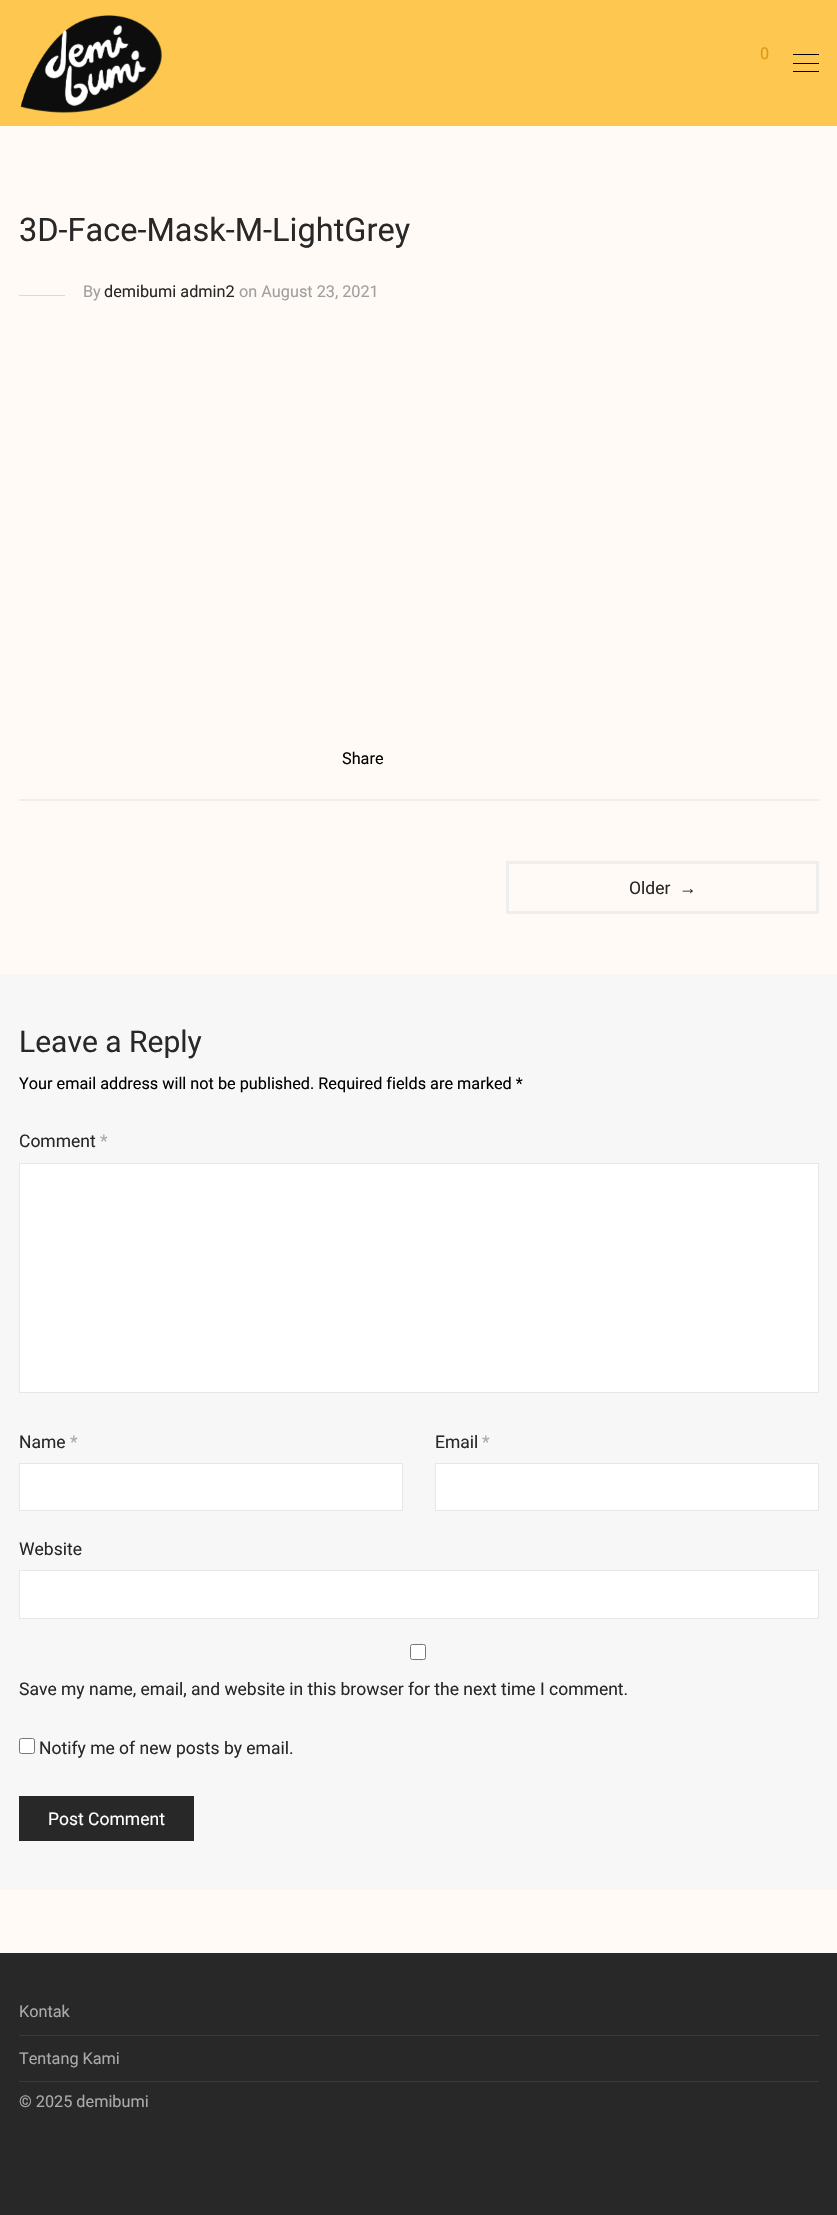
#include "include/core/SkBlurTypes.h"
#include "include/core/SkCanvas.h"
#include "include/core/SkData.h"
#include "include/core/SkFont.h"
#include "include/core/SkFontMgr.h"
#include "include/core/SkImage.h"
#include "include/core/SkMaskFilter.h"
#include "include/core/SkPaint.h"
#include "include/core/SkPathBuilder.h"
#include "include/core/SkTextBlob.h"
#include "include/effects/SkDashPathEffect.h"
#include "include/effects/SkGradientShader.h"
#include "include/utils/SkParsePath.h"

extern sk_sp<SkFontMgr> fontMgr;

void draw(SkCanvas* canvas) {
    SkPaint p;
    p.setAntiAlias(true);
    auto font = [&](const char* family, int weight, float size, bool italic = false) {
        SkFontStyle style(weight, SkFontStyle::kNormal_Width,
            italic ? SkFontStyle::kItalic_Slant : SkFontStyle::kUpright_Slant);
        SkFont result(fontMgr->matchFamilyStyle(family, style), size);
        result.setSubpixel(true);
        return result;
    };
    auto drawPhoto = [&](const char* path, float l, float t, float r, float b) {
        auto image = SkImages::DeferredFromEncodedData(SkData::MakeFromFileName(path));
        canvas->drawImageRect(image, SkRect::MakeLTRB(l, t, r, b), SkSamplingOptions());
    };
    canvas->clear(0xFFFFFAF5);
    p.setColor(0xFFFEC74F);
    canvas->drawRect(SkRect::MakeLTRB(0, 0, 837, 126), p);
    drawPhoto("media/1.png", 20, 15, 162, 113);
    auto font1 = font("Roboto", 400, 16.25f);
    p.setColor(0xFFDC9814);
    canvas->drawString("0", 760, 59, font1, p);
    {
        const struct { float l, t, r, b; SkColor color; } items[] = {
            {793, 54, 819, 55, 0xFF000000},
            {793, 63, 819, 64, 0xFF000000},
            {793, 71, 819, 72, 0xFF000000},
        };
        for (auto [l, t, r, b, color] : items) {
            p.setColor(color);
            canvas->drawRect(SkRect::MakeLTRB(l, t, r, b), p);
        }
    }
    auto font2 = font("Roboto", 400, 32.5f);
    p.setColor(0xFF282828);
    canvas->drawString("3D-Face-Mask-M-LightGrey", 19, 241, font2, p);
    p.setColor(0xFFDADADA);
    canvas->drawRect(SkRect::MakeLTRB(19, 295, 65, 296), p);
    p.setColor(0xFFA0A0A0);
    canvas->drawString("By", 83, 297, font1, p);
    p.setColor(0xFF282828);
    canvas->drawString("demibumi admin2", 104, 297, font1, p);
    p.setColor(0xFFA0A0A0);
    canvas->drawString("on August 23, 2021", 239, 297, font1, p);
    p.setColor(0xFFEEEEEE);
    canvas->drawRect(SkRect::MakeLTRB(19, 799, 819, 801), p);
    p.setColor(0xFF000000);
    canvas->drawString("Share", 342, 764, font1, p);
    p.setStyle(SkPaint::kStroke_Style);
    p.setStrokeWidth(3);
    p.setColor(0xFFEEEEEE);
    canvas->drawRect(SkRect::MakeLTRB(507.5f, 862.5f, 817.5f, 912.5f), p);
    auto font3 = font("Roboto", 400, 17.5f);
    p.setStyle(SkPaint::kFill_Style);
    p.setColor(0xFF282828);
    canvas->drawString("Older", 629, 894, font3, p);
    auto font4 = font("Liberation Sans", 400, 17.5f);
    canvas->drawString("→", 679, 894, font4, p);
    p.setColor(0xFFF7F7F7);
    canvas->drawRect(SkRect::MakeLTRB(0, 974, 837, 1890), p);
    auto font5 = font("Roboto", 400, 30);
    p.setColor(0xFF282828);
    canvas->drawString("Leave a Reply", 19, 1052, font5, p);
    p.setColor(0xFF000000);
    canvas->drawString("Your email address will not be published. Required fields are marked *", 19, 1089, font1, p);
    p.setColor(0xFF282828);
    canvas->drawString("Comment", 19, 1147, font3, p);
    p.setColor(0xFFAAAAAA);
    canvas->drawString("*", 100, 1147, font3, p);
    p.setColor(0xFFFFFFFF);
    canvas->drawRect(SkRect::MakeLTRB(19.5f, 1163.5f, 818.5f, 1392.5f), p);
    p.setStyle(SkPaint::kStroke_Style);
    p.setStrokeWidth(1);
    p.setColor(0xFFE7E7E7);
    canvas->drawRect(SkRect::MakeLTRB(19.5f, 1163.5f, 818.5f, 1392.5f), p);
    p.setStyle(SkPaint::kFill_Style);
    p.setColor(0xFF282828);
    canvas->drawString("Name", 19, 1448, font3, p);
    p.setColor(0xFFAAAAAA);
    canvas->drawString("*", 70, 1448, font3, p);
    p.setColor(0xFFFFFFFF);
    canvas->drawRect(SkRect::MakeLTRB(19.5f, 1463.5f, 402.5f, 1510.5f), p);
    p.setStyle(SkPaint::kStroke_Style);
    p.setColor(0xFFE7E7E7);
    canvas->drawRect(SkRect::MakeLTRB(19.5f, 1463.5f, 402.5f, 1510.5f), p);
    p.setStyle(SkPaint::kFill_Style);
    p.setColor(0xFF282828);
    canvas->drawString("Email", 435, 1448, font3, p);
    p.setColor(0xFFAAAAAA);
    canvas->drawString("*", 482, 1448, font3, p);
    p.setColor(0xFFFFFFFF);
    canvas->drawRect(SkRect::MakeLTRB(435.5f, 1463.5f, 818.5f, 1510.5f), p);
    p.setStyle(SkPaint::kStroke_Style);
    p.setColor(0xFFE7E7E7);
    canvas->drawRect(SkRect::MakeLTRB(435.5f, 1463.5f, 818.5f, 1510.5f), p);
    p.setStyle(SkPaint::kFill_Style);
    p.setColor(0xFF282828);
    canvas->drawString("Website", 19, 1555, font3, p);
    p.setColor(0xFFFFFFFF);
    canvas->drawRect(SkRect::MakeLTRB(19.5f, 1570.5f, 818.5f, 1618.5f), p);
    p.setStyle(SkPaint::kStroke_Style);
    p.setColor(0xFFE7E7E7);
    canvas->drawRect(SkRect::MakeLTRB(19.5f, 1570.5f, 818.5f, 1618.5f), p);
    p.setStyle(SkPaint::kFill_Style);
    p.setColor(0xFFFFFFFF);
    canvas->drawRoundRect(SkRect::MakeLTRB(410.5f, 1644.5f, 425.5f, 1659.5f), 2, 2, p);
    p.setStyle(SkPaint::kStroke_Style);
    p.setColor(0xFF767676);
    canvas->drawRoundRect(SkRect::MakeLTRB(410.5f, 1644.5f, 425.5f, 1659.5f), 2, 2, p);
    p.setStyle(SkPaint::kFill_Style);
    p.setColor(0xFF282828);
    canvas->drawString("Save my name, email, and website in this browser for the next time I comment.", 19, 1695, font3, p);
    p.setColor(0xFFFFFFFF);
    canvas->drawRoundRect(SkRect::MakeLTRB(19.5f, 1738.5f, 34.5f, 1753.5f), 2, 2, p);
    p.setStyle(SkPaint::kStroke_Style);
    p.setColor(0xFF767676);
    canvas->drawRoundRect(SkRect::MakeLTRB(19.5f, 1738.5f, 34.5f, 1753.5f), 2, 2, p);
    p.setStyle(SkPaint::kFill_Style);
    p.setColor(0xFF282828);
    canvas->drawString("Notify me of new posts by email.", 39, 1754, font3, p);
    canvas->drawRect(SkRect::MakeLTRB(19, 1796, 194, 1841), p);
    p.setColor(0xFFFFFFFF);
    canvas->drawString("Post Comment", 48, 1825, font3, p);
    p.setColor(0xFF282828);
    canvas->drawRect(SkRect::MakeLTRB(0, 1953, 837, 2215), p);
    p.setColor(0xFF3A3A3A);
    canvas->drawRect(SkRect::MakeLTRB(19, 2035, 819, 2036), p);
    p.setColor(0xFFAAAAAA);
    canvas->drawString("Kontak", 19, 2017, font1, p);
    p.setColor(0xFF3A3A3A);
    canvas->drawRect(SkRect::MakeLTRB(19, 2081, 819, 2082), p);
    p.setColor(0xFFAAAAAA);
    canvas->drawString("Tentang Kami", 19, 2064, font1, p);
    canvas->drawString("© 2025 demibumi", 19, 2107, font1, p);
}
